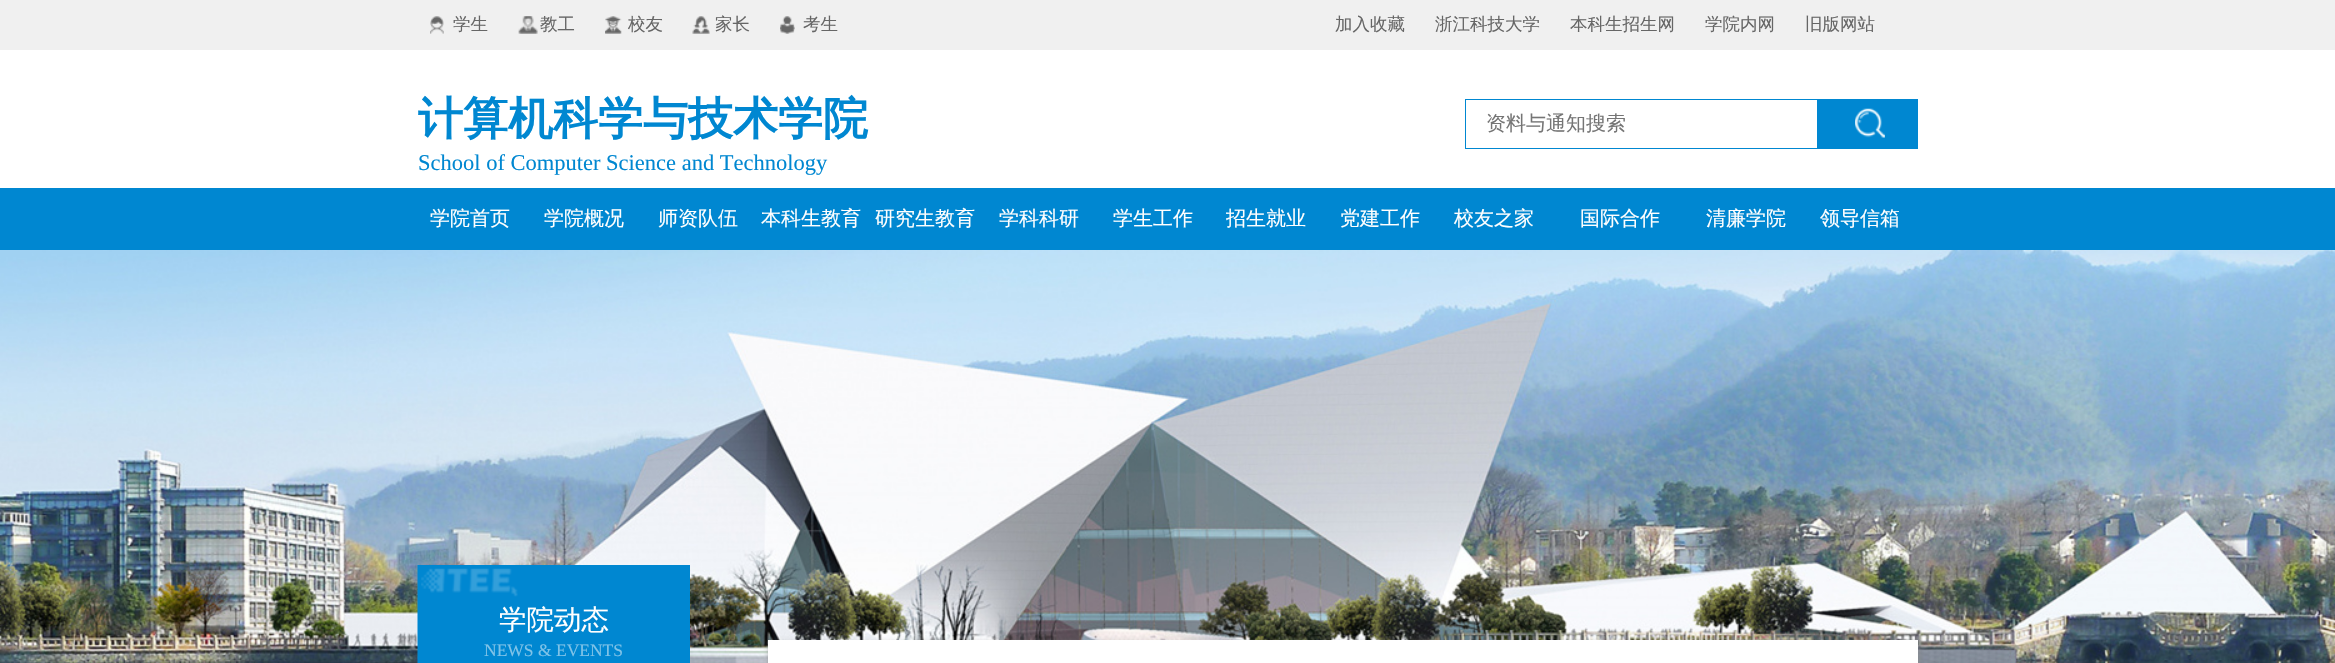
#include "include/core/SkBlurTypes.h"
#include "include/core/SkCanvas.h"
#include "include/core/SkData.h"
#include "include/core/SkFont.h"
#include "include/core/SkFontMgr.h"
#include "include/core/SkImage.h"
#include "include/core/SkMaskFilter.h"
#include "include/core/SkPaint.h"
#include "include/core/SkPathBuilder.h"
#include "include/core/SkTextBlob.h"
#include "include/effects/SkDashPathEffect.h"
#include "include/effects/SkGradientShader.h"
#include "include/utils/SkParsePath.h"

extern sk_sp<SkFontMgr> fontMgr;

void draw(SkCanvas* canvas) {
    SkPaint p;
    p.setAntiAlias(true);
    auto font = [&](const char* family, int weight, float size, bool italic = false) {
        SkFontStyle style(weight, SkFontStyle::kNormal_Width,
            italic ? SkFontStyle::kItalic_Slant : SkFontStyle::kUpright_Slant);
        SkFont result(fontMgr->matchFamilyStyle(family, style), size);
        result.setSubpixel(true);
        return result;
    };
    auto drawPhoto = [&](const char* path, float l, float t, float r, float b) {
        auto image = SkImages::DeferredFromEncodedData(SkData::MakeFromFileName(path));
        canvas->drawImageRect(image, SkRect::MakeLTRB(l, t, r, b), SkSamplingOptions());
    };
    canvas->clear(0xFFFFFFFF);
    p.setColor(0xFFF0F0F0);
    canvas->drawRect(SkRect::MakeLTRB(0, 0, 2335, 50), p);
    drawPhoto("media/1.png", 430, 16, 444, 34);
    auto font1 = font("WenQuanYi Zen Hei", 500, 17.5f);
    p.setColor(0xFF666666);
    canvas->drawString("学生", 453, 30, font1, p);
    drawPhoto("media/2.png", 518, 16, 538, 34);
    canvas->drawString("教工", 540, 30, font1, p);
    drawPhoto("media/3.png", 605, 16, 622, 34);
    canvas->drawString("校友", 628, 30, font1, p);
    drawPhoto("media/4.png", 692, 16, 710, 34);
    canvas->drawString("家长", 715, 30, font1, p);
    drawPhoto("media/5.png", 780, 16, 795, 34);
    {
        const struct { const char* s; float x, y; } items[] = {
            {"考生", 803, 30},
            {"加入收藏", 1335, 30},
            {"浙江科技大学", 1435, 30},
            {"本科生招生网", 1570, 30},
            {"学院内网", 1705, 30},
            {"旧版网站", 1805, 30},
        };
        for (auto [s, x, y] : items) {
            canvas->drawString(s, x, y, font1, p);
        }
    }
    auto font2 = font("WenQuanYi Zen Hei", 700, 45);
    p.setColor(0xFF0087D1);
    canvas->drawString("计算机科学与技术学院", 418, 134, font2, p);
    auto font3 = font("Liberation Serif", 400, 22.5f);
    canvas->drawString("School of Computer Science and Technology", 418, 170, font3, p);
    p.setStyle(SkPaint::kStroke_Style);
    p.setStrokeWidth(1);
    canvas->drawRect(SkRect::MakeLTRB(1465.5f, 99.5f, 1817.5f, 148.5f), p);
    auto font4 = font("WenQuanYi Zen Hei", 500, 20);
    p.setStyle(SkPaint::kFill_Style);
    p.setColor(0xFF757575);
    canvas->drawString("资料与通知搜索", 1486, 130, font4, p);
    p.setColor(0xFF0087D1);
    canvas->drawRect(SkRect::MakeLTRB(1818, 99, 1918, 149), p);
    drawPhoto("media/6.png", 1855, 108, 1885, 138);
    canvas->drawRect(SkRect::MakeLTRB(0, 188, 2335, 250), p);
    p.setColor(0xFFFFFFFF);
    {
        const struct { const char* s; float x, y; } items[] = {
            {"学院首页", 430, 225},
            {"学院概况", 544, 225},
            {"师资队伍", 658, 225},
            {"本科生教育", 761, 225},
            {"研究生教育", 875, 225},
            {"学科科研", 999, 225},
            {"学生工作", 1113, 225},
            {"招生就业", 1226, 225},
            {"党建工作", 1340, 225},
            {"校友之家", 1454, 225},
            {"国际合作", 1580, 225},
            {"清廉学院", 1706, 225},
            {"领导信箱", 1820, 225},
        };
        for (auto [s, x, y] : items) {
            canvas->drawString(s, x, y, font4, p);
        }
    }
    drawPhoto("media/7.png", 0, 250, 2335, 663);
    p.setColor(0xFF0087D1);
    canvas->drawRect(SkRect::MakeLTRB(518, 565, 690, 663), p);
    drawPhoto("media/8.png", 417, 565, 518, 663);
    auto font5 = font("WenQuanYi Zen Hei", 500, 27.5f);
    p.setColor(0xFFFFFFFF);
    canvas->drawString("学院动态", 499, 629, font5, p);
    auto font6 = font("Liberation Serif", 400, 17.5f);
    p.setColor(0xFF80C3E8);
    canvas->drawString("NEWS & EVENTS", 484, 656, font6, p);
    p.setColor(0xBF888888);
    p.setMaskFilter(SkMaskFilter::MakeBlur(kNormal_SkBlurStyle, 3));
    canvas->drawRect(SkRect::MakeLTRB(769, 643, 1919, 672), p);
    p.setMaskFilter(nullptr);
    p.setColor(0xFFFFFFFF);
    canvas->drawRect(SkRect::MakeLTRB(768, 640, 1918, 663), p);
}
